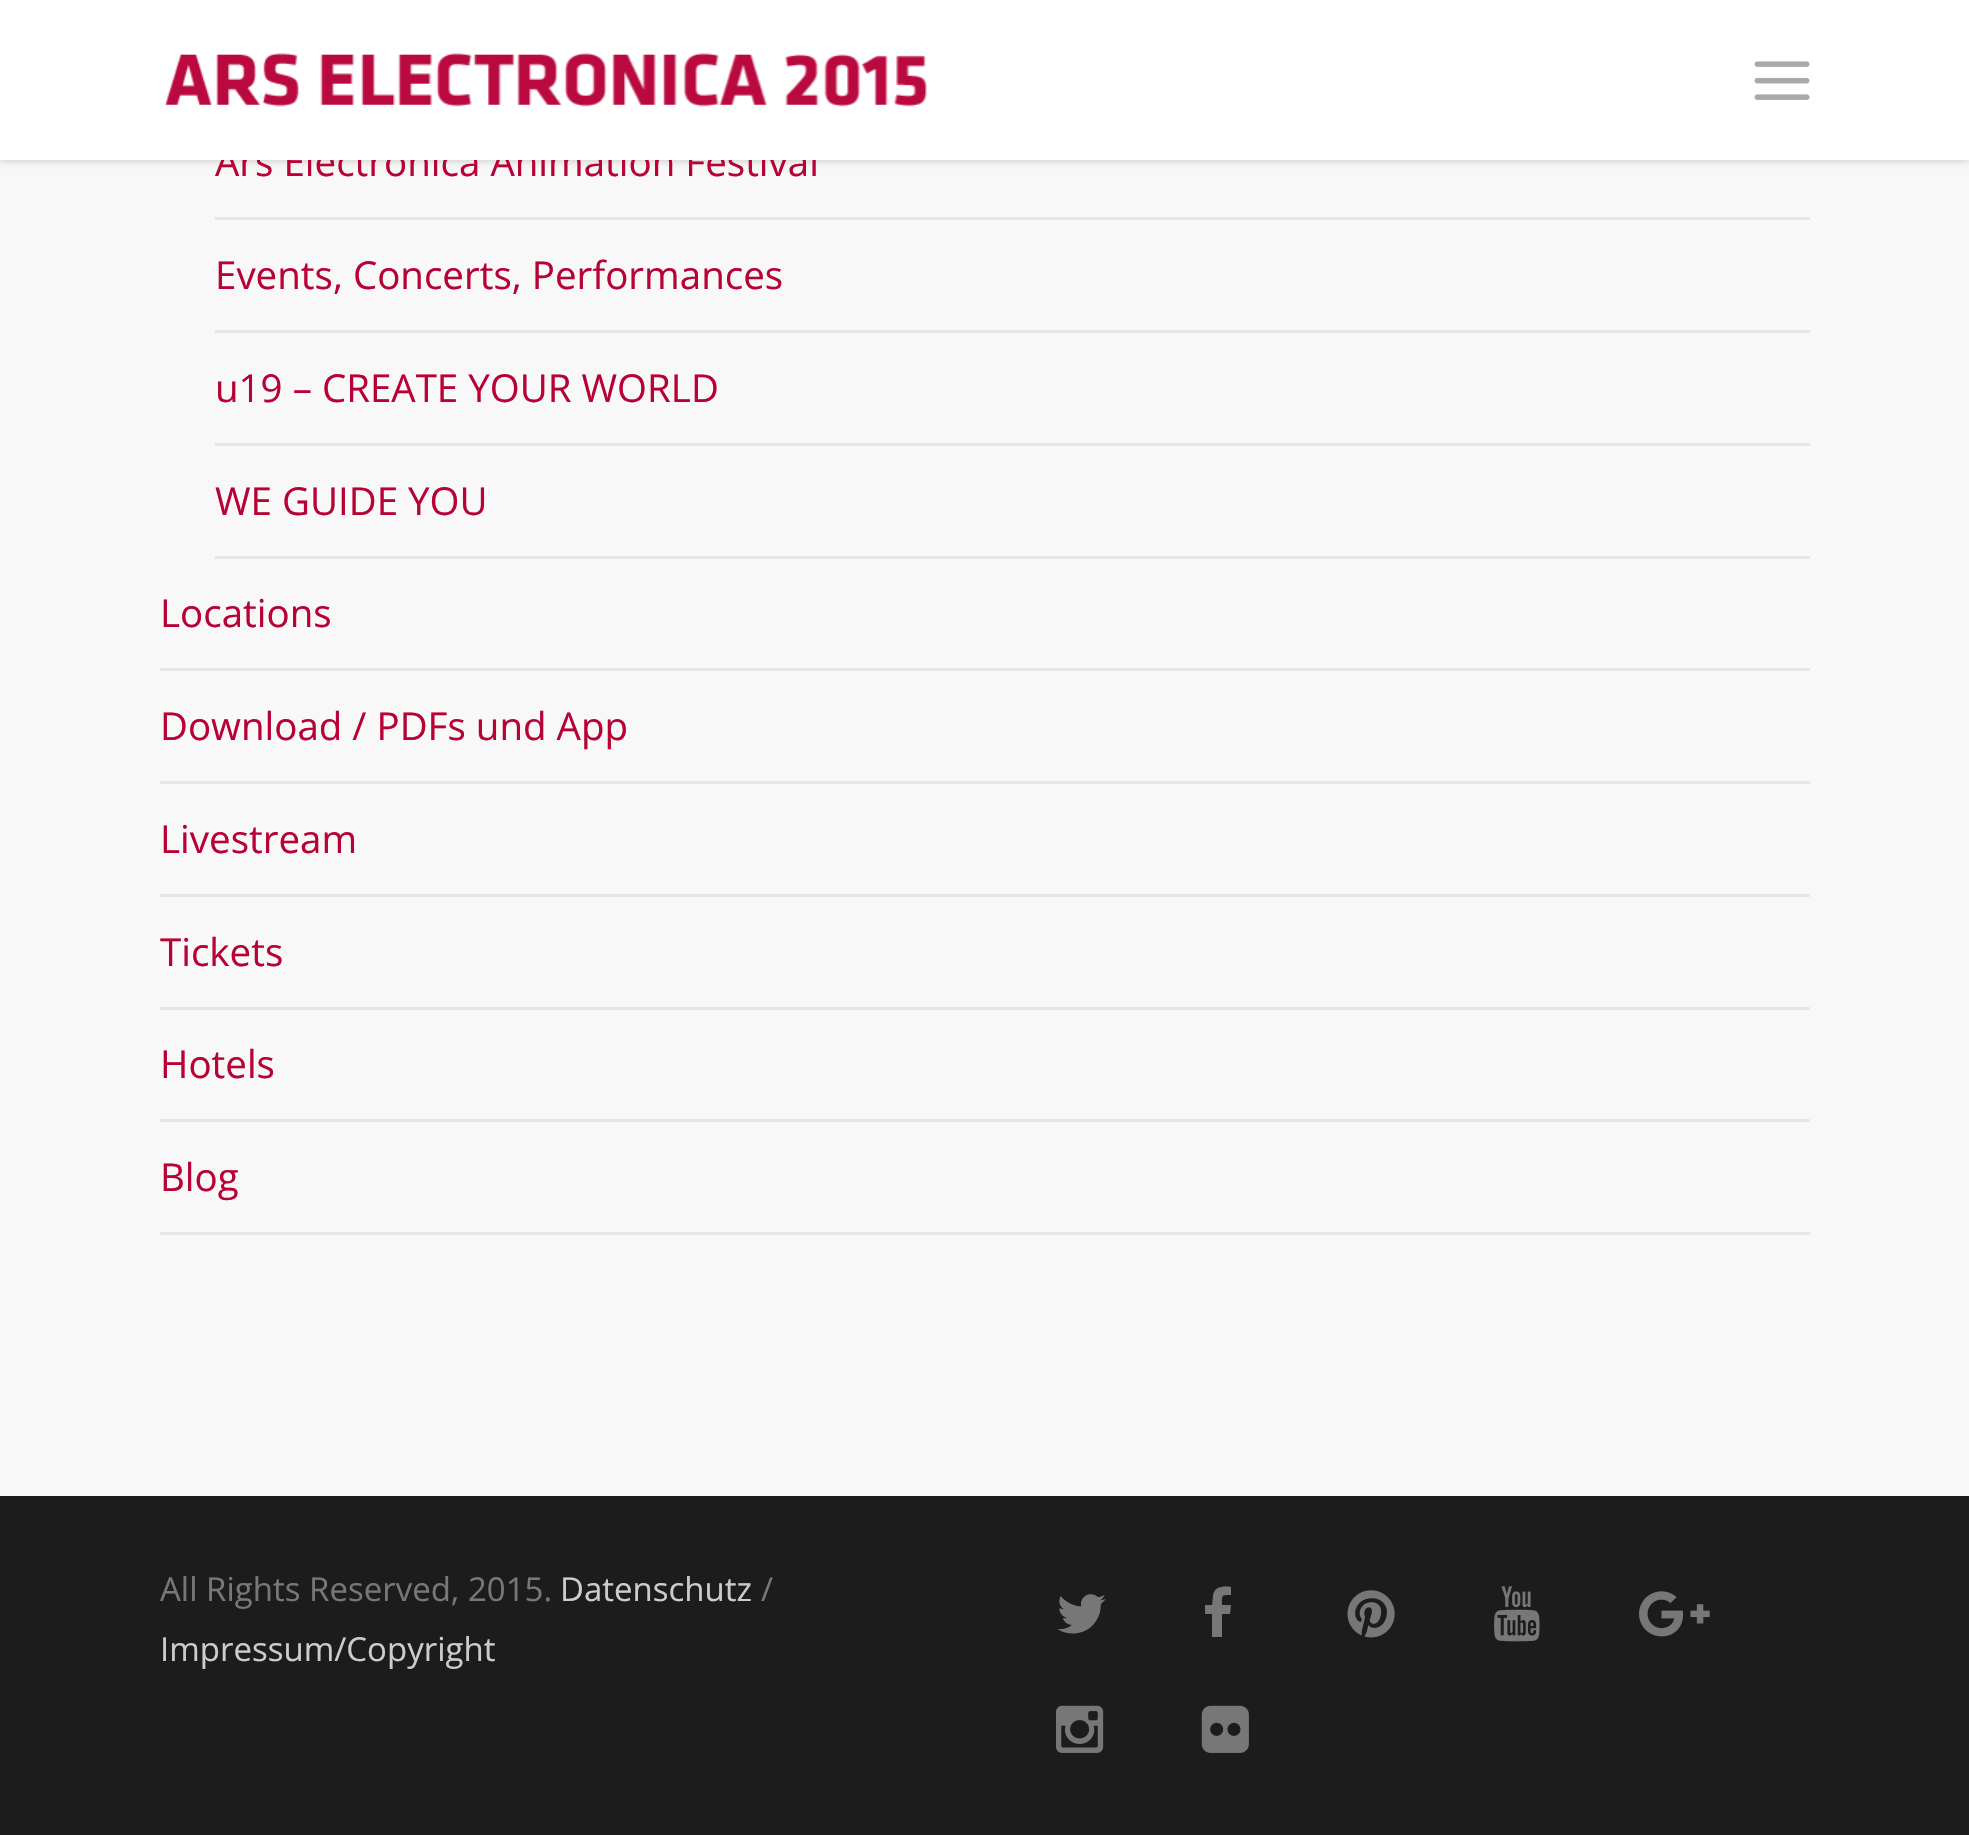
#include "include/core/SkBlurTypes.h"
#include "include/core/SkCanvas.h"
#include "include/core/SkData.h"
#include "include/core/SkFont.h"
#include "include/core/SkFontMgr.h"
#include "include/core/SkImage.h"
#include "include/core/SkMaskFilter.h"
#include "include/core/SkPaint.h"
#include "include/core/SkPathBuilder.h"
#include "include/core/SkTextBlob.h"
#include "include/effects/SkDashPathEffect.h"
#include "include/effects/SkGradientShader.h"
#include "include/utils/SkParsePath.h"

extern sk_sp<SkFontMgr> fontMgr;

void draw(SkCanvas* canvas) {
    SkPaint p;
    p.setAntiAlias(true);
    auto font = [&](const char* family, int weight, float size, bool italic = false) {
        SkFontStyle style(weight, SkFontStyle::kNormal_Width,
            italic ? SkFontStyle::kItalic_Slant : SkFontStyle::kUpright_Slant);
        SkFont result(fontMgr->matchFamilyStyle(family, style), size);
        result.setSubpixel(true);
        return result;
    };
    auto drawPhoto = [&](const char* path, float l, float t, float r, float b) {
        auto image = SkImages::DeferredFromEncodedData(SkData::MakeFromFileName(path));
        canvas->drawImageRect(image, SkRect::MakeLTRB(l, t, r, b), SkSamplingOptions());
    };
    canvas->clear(0xFF1C1C1C);
    p.setColor(0xFFF8F8F8);
    canvas->drawRect(SkRect::MakeLTRB(0, 160, 1969, 1496), p);
    p.setColor(0x38000000);
    p.setMaskFilter(SkMaskFilter::MakeBlur(kNormal_SkBlurStyle, 4));
    canvas->drawRect(SkRect::MakeLTRB(0, 0, 1969, 160), p);
    p.setMaskFilter(nullptr);
    auto font1 = font("Open Sans", 400, 38.5f);
    p.setColor(0xFFB80236);
    canvas->drawString("Ars Electronica Animation Festival", 215, 176, font1, p);
    p.setColor(0xFFFFFFFF);
    canvas->drawRect(SkRect::MakeLTRB(0, 0, 1969, 160), p);
    drawPhoto("media/1.png", 164, 53, 927, 107);
    drawPhoto("media/2.png", 1754, 61, 1810, 100);
    p.setColor(0xFFE6E6E6);
    canvas->drawRect(SkRect::MakeLTRB(215, 217, 1810, 220), p);
    canvas->drawRect(SkRect::MakeLTRB(215, 330, 1810, 333), p);
    p.setColor(0xFFB80236);
    canvas->drawString("Events, Concerts, Performances", 215, 289, font1, p);
    p.setColor(0xFFE6E6E6);
    canvas->drawRect(SkRect::MakeLTRB(215, 443, 1810, 446), p);
    p.setColor(0xFFB80236);
    canvas->drawString("u19 – CREATE YOUR WORLD", 215, 402, font1, p);
    p.setColor(0xFFE6E6E6);
    canvas->drawRect(SkRect::MakeLTRB(215, 556, 1810, 559), p);
    p.setColor(0xFFB80236);
    canvas->drawString("WE GUIDE YOU", 215, 515, font1, p);
    p.setColor(0xFFE6E6E6);
    canvas->drawRect(SkRect::MakeLTRB(160, 668, 1810, 671), p);
    p.setColor(0xFFB80236);
    canvas->drawString("Locations", 160, 627, font1, p);
    p.setColor(0xFFE6E6E6);
    canvas->drawRect(SkRect::MakeLTRB(160, 781, 1810, 784), p);
    p.setColor(0xFFB80236);
    canvas->drawString("Download / PDFs und App", 160, 740, font1, p);
    p.setColor(0xFFE6E6E6);
    canvas->drawRect(SkRect::MakeLTRB(160, 894, 1810, 897), p);
    p.setColor(0xFFB80236);
    canvas->drawString("Livestream", 160, 853, font1, p);
    p.setColor(0xFFE6E6E6);
    canvas->drawRect(SkRect::MakeLTRB(160, 1007, 1810, 1010), p);
    p.setColor(0xFFB80236);
    canvas->drawString("Tickets", 160, 966, font1, p);
    p.setColor(0xFFE6E6E6);
    canvas->drawRect(SkRect::MakeLTRB(160, 1119, 1810, 1122), p);
    p.setColor(0xFFB80236);
    canvas->drawString("Hotels", 160, 1078, font1, p);
    p.setColor(0xFFE6E6E6);
    canvas->drawRect(SkRect::MakeLTRB(160, 1232, 1810, 1235), p);
    p.setColor(0xFFB80236);
    canvas->drawString("Blog", 160, 1191, font1, p);
    auto font2 = font("Open Sans", 400, 33);
    p.setColor(0xFF777777);
    canvas->drawString("All Rights Reserved, 2015.", 160, 1601, font2, p);
    p.setColor(0xFFCCCCCC);
    canvas->drawString("Datenschutz", 560, 1601, font2, p);
    p.setColor(0xFF777777);
    canvas->drawString("/", 761, 1601, font2, p);
    p.setColor(0xFFCCCCCC);
    canvas->drawString("Impressum/Copyright", 160, 1661, font2, p);
    drawPhoto("media/3.png", 1057, 1594, 1106, 1634);
    p.setColor(0xFF777777);
    canvas->drawPath(SkPathBuilder().moveTo(1231, 1587).lineTo(1231, 1595).cubicTo(1221, 1595, 1222, 1595, 1222, 1605).lineTo(1231, 1605).lineTo(1230, 1614).lineTo(1222, 1614).lineTo(1222, 1637).lineTo(1212, 1637).lineTo(1212, 1614).lineTo(1205, 1614).lineTo(1205, 1605).lineTo(1212, 1605).lineTo(1213, 1596).cubicTo(1214, 1586, 1224, 1586, 1231, 1587).close().detach(), p);
    drawPhoto("media/4.png", 1347, 1590, 1395, 1638);
    drawPhoto("media/5.png", 1494, 1586, 1540, 1642);
    drawPhoto("media/6.png", 1639, 1591, 1710, 1637);
    drawPhoto("media/7.png", 1056, 1705, 1104, 1753);
    drawPhoto("media/8.png", 1201, 1705, 1249, 1753);
}
